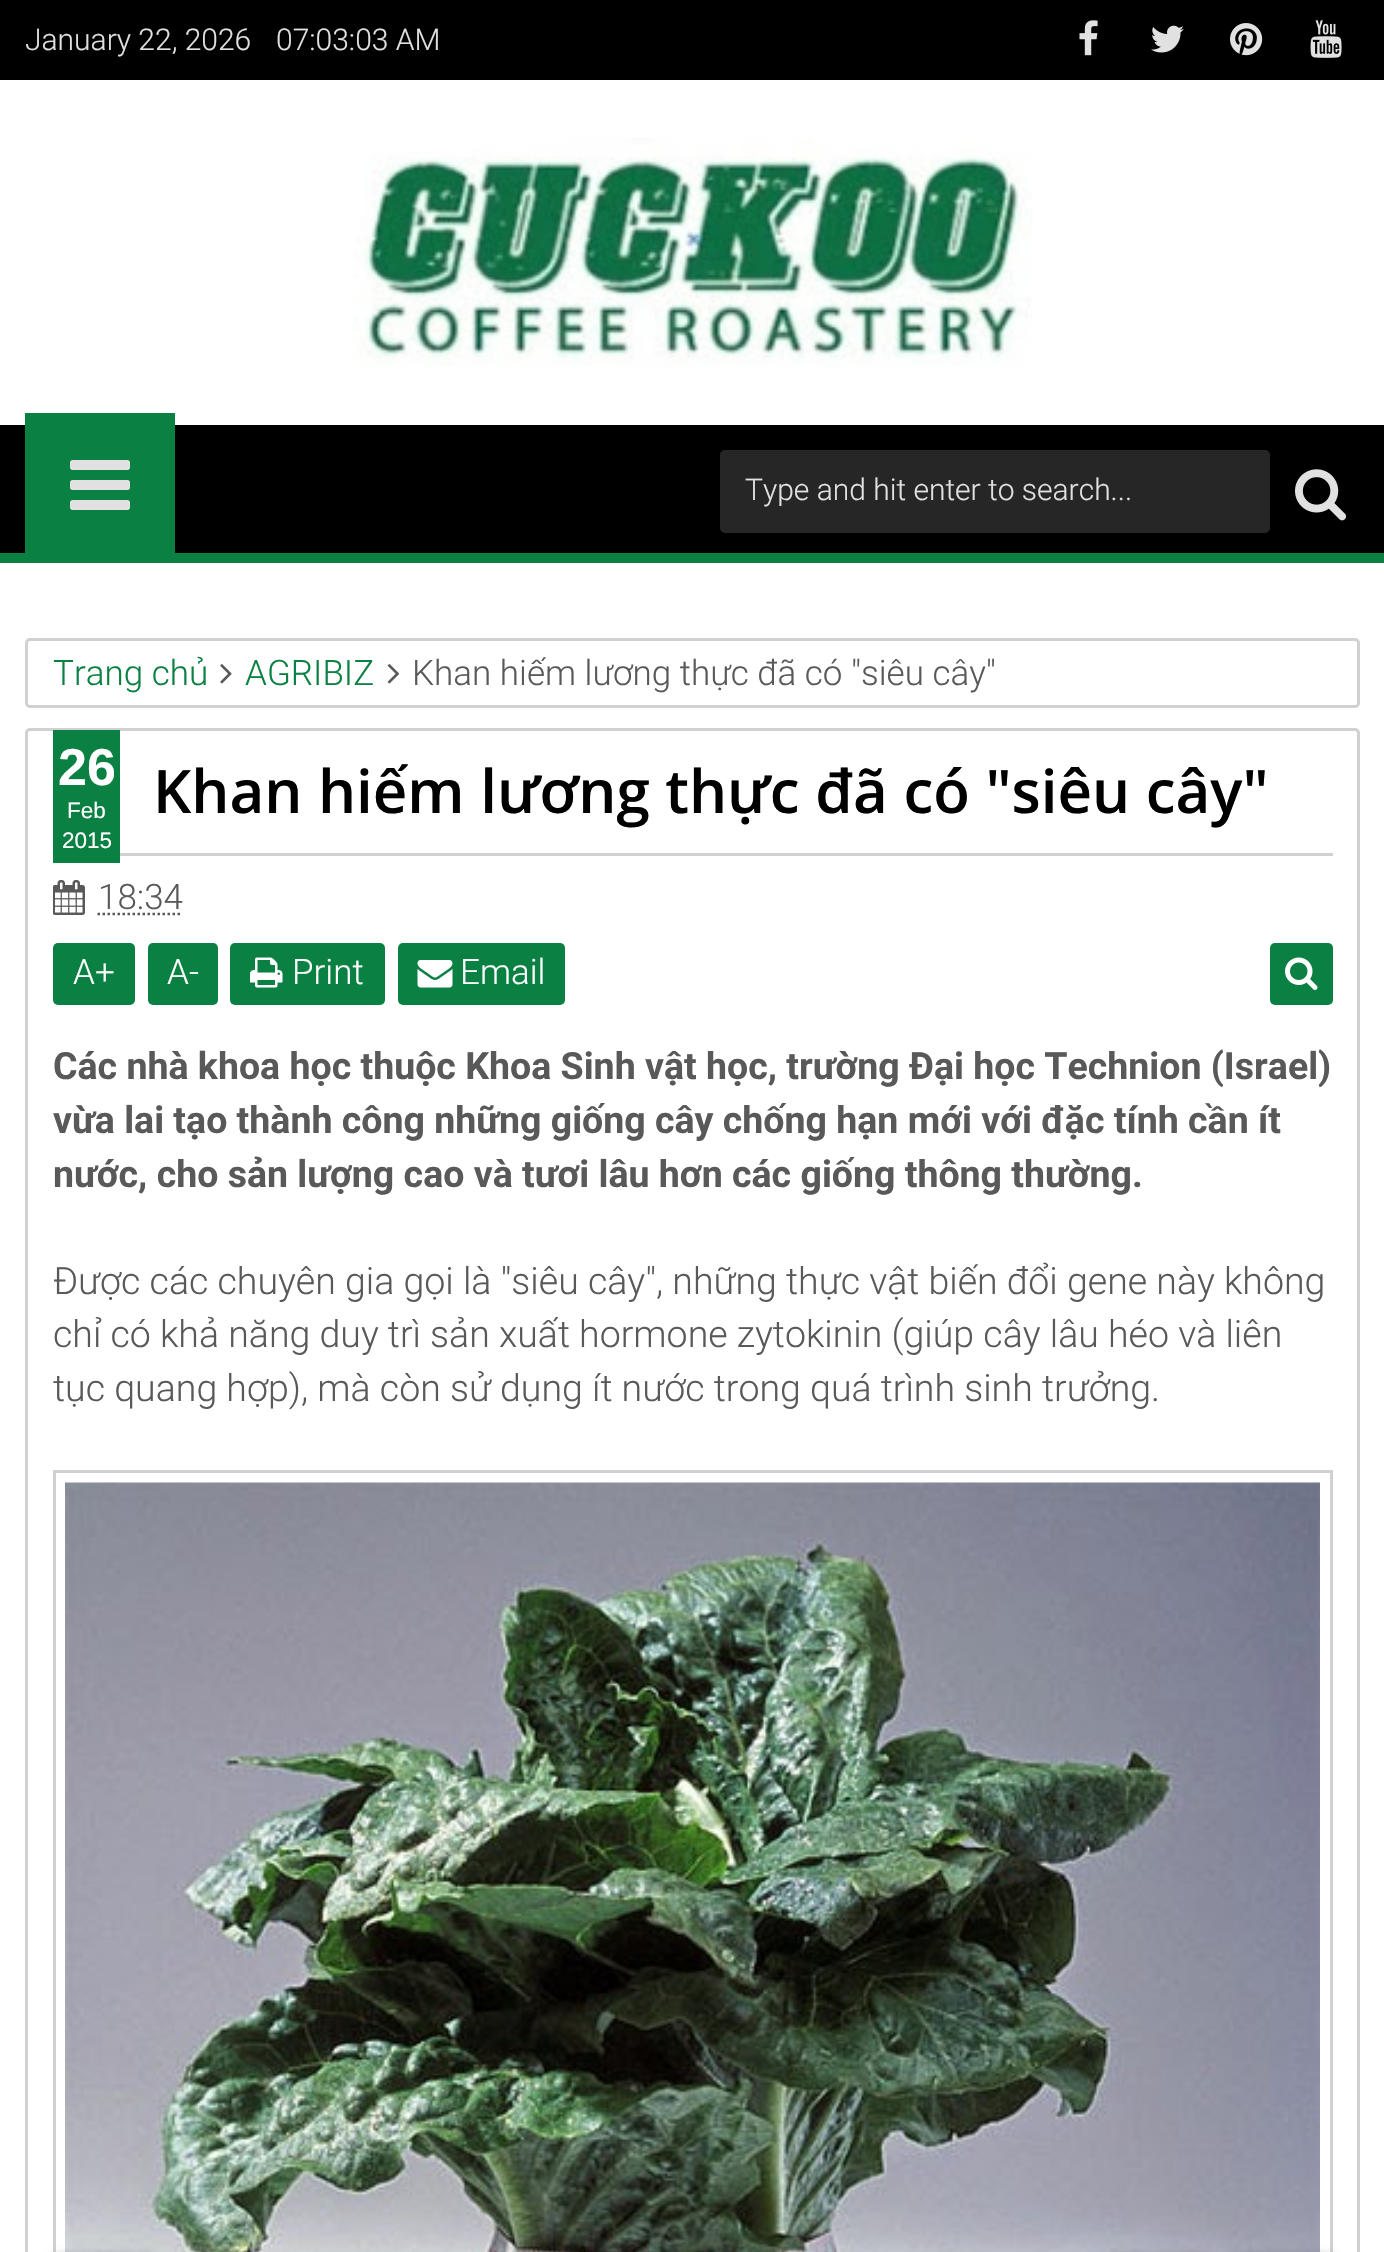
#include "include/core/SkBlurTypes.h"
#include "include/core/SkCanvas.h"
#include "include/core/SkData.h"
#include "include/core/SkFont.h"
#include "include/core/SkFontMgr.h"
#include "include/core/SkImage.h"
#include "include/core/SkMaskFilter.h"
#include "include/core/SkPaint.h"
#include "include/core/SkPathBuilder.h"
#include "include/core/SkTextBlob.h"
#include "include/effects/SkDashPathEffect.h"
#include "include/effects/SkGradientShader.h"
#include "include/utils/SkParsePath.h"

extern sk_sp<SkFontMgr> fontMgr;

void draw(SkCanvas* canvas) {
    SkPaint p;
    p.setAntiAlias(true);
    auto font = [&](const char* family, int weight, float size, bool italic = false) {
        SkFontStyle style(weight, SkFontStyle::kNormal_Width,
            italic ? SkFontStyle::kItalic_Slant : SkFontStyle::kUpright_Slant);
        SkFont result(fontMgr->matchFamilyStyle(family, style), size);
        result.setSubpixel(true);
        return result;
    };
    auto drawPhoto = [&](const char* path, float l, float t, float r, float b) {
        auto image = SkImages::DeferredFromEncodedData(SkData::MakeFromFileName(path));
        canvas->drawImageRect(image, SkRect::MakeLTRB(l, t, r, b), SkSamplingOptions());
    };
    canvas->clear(0xFFFFFFFF);
    p.setColor(0xFF000000);
    canvas->drawRect(SkRect::MakeLTRB(0, 0, 1384, 80), p);
    auto font1 = font("Roboto", 300, 30);
    p.setColor(0xFFE1E1E1);
    canvas->drawString("January 22, 2026", 25, 50, font1, p);
    canvas->drawString("07:03:03 AM", 276, 50, font1, p);
    drawPhoto("media/1.png", 1079, 20, 1098, 56);
    drawPhoto("media/2.png", 1151, 25, 1184, 53);
    drawPhoto("media/3.png", 1230, 23, 1263, 56);
    drawPhoto("media/4.png", 1310, 20, 1342, 58);
    drawPhoto("media/5.png", 353, 138, 1033, 367);
    {
        const struct { float l, t, r, b; SkColor color; } items[] = {
            {0, 425, 1384, 553, 0xFF000000},
            {0, 553, 1384, 563, 0xFF0B8043},
            {25, 413, 175, 553, 0xFF0B8043},
        };
        for (auto [l, t, r, b, color] : items) {
            p.setColor(color);
            canvas->drawRect(SkRect::MakeLTRB(l, t, r, b), p);
        }
    }
    drawPhoto("media/6.png", 70, 460, 130, 510);
    p.setColor(0xFF262626);
    canvas->drawRoundRect(SkRect::MakeLTRB(720, 450, 1270, 533), 5, 5, p);
    p.setColor(0xFFE1E1E1);
    canvas->drawString("Type and hit enter to search...", 745, 500, font1, p);
    drawPhoto("media/7.png", 1295, 469, 1347, 521);
    p.setStyle(SkPaint::kStroke_Style);
    p.setStrokeWidth(3);
    p.setColor(0xFFD1D1D1);
    canvas->drawRoundRect(SkRect::MakeLTRB(26.5f, 639.5f, 1358.5f, 706.5f), 3.5f, 3.5f, p);
    auto font2 = font("Roboto", 300, 35);
    p.setStyle(SkPaint::kFill_Style);
    p.setColor(0xFF0B8043);
    canvas->drawString("Trang chủ", 53, 685, font2, p);
    drawPhoto("media/8.png", 220, 664, 232, 684);
    canvas->drawString("AGRIBIZ", 245, 685, font2, p);
    drawPhoto("media/9.png", 387, 664, 400, 684);
    p.setColor(0xFF595959);
    canvas->drawString("Khan hiếm lương thực đã có \"siêu cây\"", 412, 685, font2, p);
    p.setStyle(SkPaint::kStroke_Style);
    p.setColor(0xFFD1D1D1);
    canvas->drawRoundRect(SkRect::MakeLTRB(26.5f, 729.5f, 1358.5f, 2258.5f), 3.5f, 3.5f, p);
    p.setStyle(SkPaint::kFill_Style);
    p.setColor(0xFF0B8043);
    canvas->drawRect(SkRect::MakeLTRB(53, 730, 120, 863), p);
    auto font3 = font("Liberation Sans", 700, 52);
    p.setColor(0xFFFFFFFF);
    canvas->drawString("26", 58, 785, font3, p);
    auto font4 = font("Liberation Sans", 400, 22.5f);
    canvas->drawString("Feb", 67, 818, font4, p);
    canvas->drawString("2015", 62, 848, font4, p);
    p.setColor(0xFFD1D1D1);
    canvas->drawRect(SkRect::MakeLTRB(120, 853, 1333, 856), p);
    auto font5 = font("Open Sans", 600, 60);
    p.setColor(0xFF000000);
    canvas->drawString("Khan hiếm lương thực đã có \"siêu cây\"", 153, 813, font5, p);
    drawPhoto("media/10.png", 53, 880, 85, 915);
    p.setColor(0xFF595959);
    canvas->drawString("18:34", 98, 909, font2, p);
    p.setStyle(SkPaint::kStroke_Style);
    p.setStrokeWidth(2.5f);
    p.setPathEffect(SkDashPathEffect::Make({{2.5f, 2.5f}}, 0));
    canvas->drawPath(SkPathBuilder().moveTo(97.5f, 914).lineTo(182.5f, 914).detach(), p);
    p.setPathEffect(nullptr);
    p.setStyle(SkPaint::kFill_Style);
    p.setColor(0xFF0B8043);
    canvas->drawRoundRect(SkRect::MakeLTRB(53, 943, 135, 1005), 5, 5, p);
    p.setColor(0xFFFFFFFF);
    canvas->drawString("A+", 73, 984, font2, p);
    p.setColor(0xFF0B8043);
    canvas->drawRoundRect(SkRect::MakeLTRB(148, 943, 218, 1005), 5, 5, p);
    p.setColor(0xFFFFFFFF);
    canvas->drawString("A-", 167, 984, font2, p);
    p.setColor(0xFF0B8043);
    canvas->drawRoundRect(SkRect::MakeLTRB(230, 943, 385, 1005), 5, 5, p);
    drawPhoto("media/11.png", 250, 957, 283, 988);
    p.setColor(0xFFFFFFFF);
    canvas->drawString("Print", 292, 984, font2, p);
    p.setColor(0xFF0B8043);
    canvas->drawRoundRect(SkRect::MakeLTRB(398, 943, 565, 1005), 5, 5, p);
    drawPhoto("media/12.png", 417, 960, 453, 988);
    p.setColor(0xFFFFFFFF);
    canvas->drawString("Email", 460, 984, font2, p);
    p.setColor(0xFF0B8043);
    canvas->drawRoundRect(SkRect::MakeLTRB(1270, 943, 1333, 1005), 5, 5, p);
    drawPhoto("media/13.png", 1285, 957, 1318, 990);
    auto font6 = font("Roboto", 700, 37.5f);
    p.setColor(0xFF595959);
    {
        const struct { const char* s; float x, y; } items[] = {
            {"Các nhà khoa học thuộc Khoa Sinh vật học, trường Đại học Technion (Israel)", 53, 1079},
            {"vừa lai tạo thành công những giống cây chống hạn mới với đặc tính cần ít", 53, 1133},
            {"nước, cho sản lượng cao và tươi lâu hơn các giống thông thường.", 53, 1187},
        };
        for (auto [s, x, y] : items) {
            canvas->drawString(s, x, y, font6, p);
        }
    }
    auto font7 = font("Roboto", 300, 37.5f);
    {
        const struct { const char* s; float x, y; } items[] = {
            {"Được các chuyên gia gọi là \"siêu cây\", những thực vật biến đổi gene này không", 53, 1294},
            {"chỉ có khả năng duy trì sản xuất hormone zytokinin (giúp cây lâu héo và liên", 53, 1347},
            {"tục quang hợp), mà còn sử dụng ít nước trong quá trình sinh trưởng.", 53, 1401},
        };
        for (auto [s, x, y] : items) {
            canvas->drawString(s, x, y, font7, p);
        }
    }
    p.setStyle(SkPaint::kStroke_Style);
    p.setStrokeWidth(3);
    p.setColor(0xFFD1D1D1);
    canvas->drawRect(SkRect::MakeLTRB(54.5f, 1471.5f, 1331.5f, 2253.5f), p);
    drawPhoto("media/14.png", 65, 1482, 1320, 2252);
    p.setStyle(SkPaint::kFill_Style);
    p.setColor(0x80000000);
    p.setMaskFilter(SkMaskFilter::MakeBlur(kNormal_SkBlurStyle, 6));
    canvas->drawRoundRect(SkRect::MakeLTRB(1105, 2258, 1210, 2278), 8, 8, p);
    p.setMaskFilter(nullptr);
    p.setMaskFilter(SkMaskFilter::MakeBlur(kNormal_SkBlurStyle, 6));
    canvas->drawRoundRect(SkRect::MakeLTRB(1230, 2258, 1335, 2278), 8, 8, p);
    p.setMaskFilter(nullptr);
    p.setMaskFilter(SkMaskFilter::MakeBlur(kNormal_SkBlurStyle, 6));
    canvas->drawRoundRect(SkRect::MakeLTRB(50, 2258, 155, 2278), 8, 8, p);
    p.setMaskFilter(nullptr);
}
